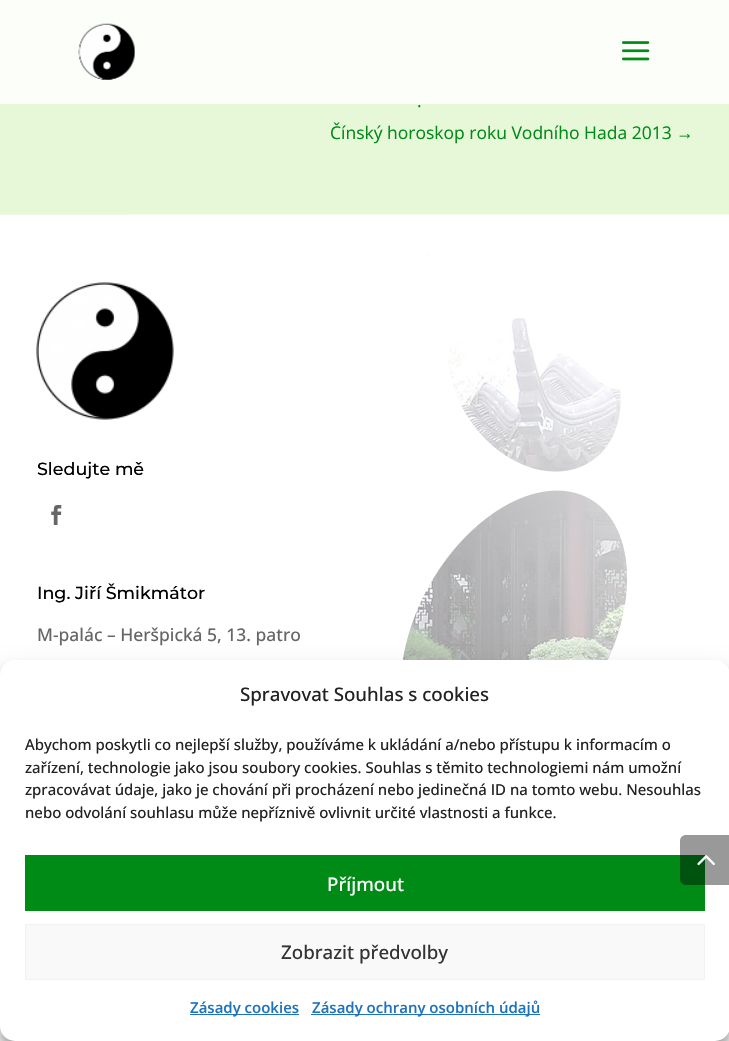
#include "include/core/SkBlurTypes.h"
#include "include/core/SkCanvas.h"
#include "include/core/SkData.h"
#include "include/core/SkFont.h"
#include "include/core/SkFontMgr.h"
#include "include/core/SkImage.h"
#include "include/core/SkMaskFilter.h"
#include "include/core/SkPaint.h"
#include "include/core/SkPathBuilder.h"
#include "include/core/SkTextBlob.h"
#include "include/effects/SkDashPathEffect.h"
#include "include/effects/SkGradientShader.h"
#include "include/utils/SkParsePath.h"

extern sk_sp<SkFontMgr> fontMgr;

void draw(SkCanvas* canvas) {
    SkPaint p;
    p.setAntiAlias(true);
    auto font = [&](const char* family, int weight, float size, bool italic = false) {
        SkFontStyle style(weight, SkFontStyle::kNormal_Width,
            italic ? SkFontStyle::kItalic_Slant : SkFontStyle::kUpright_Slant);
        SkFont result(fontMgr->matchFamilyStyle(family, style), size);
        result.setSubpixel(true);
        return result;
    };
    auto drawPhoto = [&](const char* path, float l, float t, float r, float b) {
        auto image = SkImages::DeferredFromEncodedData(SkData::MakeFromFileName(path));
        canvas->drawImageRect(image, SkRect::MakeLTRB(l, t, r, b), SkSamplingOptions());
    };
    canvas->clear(0xFFE6F8D8);
    p.setColor(0xDBFFFFFF);
    canvas->drawRect(SkRect::MakeLTRB(0, 0, 729, 104), p);
    drawPhoto("media/1.png", 78, 23, 135, 80);
    drawPhoto("media/2.png", 622, 41, 650, 61);
    auto font1 = font("Open Sans", 400, 17.5f);
    p.setColor(0xFF008A16);
    canvas->drawString(".", 417, 107, font1, p);
    canvas->drawString("Čínský horoskop roku Vodního Hada 2013", 330, 139, font1, p);
    auto font2 = font("Liberation Sans", 400, 17.5f);
    canvas->drawString("→", 676, 139, font2, p);
    drawPhoto("media/3.png", 0, 214, 729, 660);
    drawPhoto("media/4.png", 0, 290, 729, 1041);
    drawPhoto("media/5.png", 36, 282, 174, 420);
    auto font3 = font("Montserrat", 500, 17.5f);
    p.setColor(0xFF000000);
    canvas->drawString("Sledujte mě", 37, 475, font3, p);
    drawPhoto("media/6.png", 51, 505, 62, 525);
    canvas->drawString("Ing. Jiří Šmikmátor", 37, 599, font3, p);
    auto font4 = font("Open Sans", 500, 17.5f);
    p.setColor(0xFF666666);
    canvas->drawString("M-palác – Heršpická 5, 13. patro", 37, 641, font4, p);
    p.setColor(0x3B000000);
    p.setMaskFilter(SkMaskFilter::MakeBlur(kNormal_SkBlurStyle, 4));
    canvas->drawRoundRect(SkRect::MakeLTRB(0, 668, 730, 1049), 15, 15, p);
    p.setMaskFilter(nullptr);
    p.setColor(0x30000000);
    p.setMaskFilter(SkMaskFilter::MakeBlur(kNormal_SkBlurStyle, 12.5f));
    canvas->drawRoundRect(SkRect::MakeLTRB(0, 673, 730, 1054), 15, 15, p);
    p.setMaskFilter(nullptr);
    p.setColor(0xFFFFFFFF);
    canvas->drawRoundRect(SkRect::MakeLTRB(0, 660, 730, 1041), 15, 15, p);
    auto font5 = font("Open Sans", 500, 18.75f);
    p.setColor(0xFF222222);
    canvas->drawString("Spravovat Souhlas s cookies", 240, 701, font5, p);
    auto font6 = font("Open Sans", 500, 15);
    {
        const struct { const char* s; float x, y; } items[] = {
            {"Abychom poskytli co nejlepší služby, používáme k ukládání a/nebo přístupu k informacím o", 25, 750},
            {"zařízení, technologie jako jsou soubory cookies. Souhlas s těmito technologiemi nám umožní", 25, 773},
            {"zpracovávat údaje, jako je chování při procházení nebo jedinečná ID na tomto webu. Nesouhlas", 25, 795},
            {"nebo odvolání souhlasu může nepříznivě ovlivnit určité vlastnosti a funkce.", 25, 818},
        };
        for (auto [s, x, y] : items) {
            canvas->drawString(s, x, y, font6, p);
        }
    }
    p.setColor(0xFF008A16);
    canvas->drawRect(SkRect::MakeLTRB(25, 855, 705, 911), p);
    p.setColor(0xFFFFFFFF);
    canvas->drawString("Příjmout", 327, 891, font5, p);
    p.setColor(0xFFF9F9F9);
    canvas->drawRect(SkRect::MakeLTRB(25.5f, 924.5f, 704.5f, 979.5f), p);
    p.setStyle(SkPaint::kStroke_Style);
    p.setStrokeWidth(1);
    p.setColor(0xFFF2F2F2);
    canvas->drawRect(SkRect::MakeLTRB(25.5f, 924.5f, 704.5f, 979.5f), p);
    p.setStyle(SkPaint::kFill_Style);
    p.setColor(0xFF333333);
    canvas->drawString("Zobrazit předvolby", 281, 959, font5, p);
    p.setColor(0xFF1E73BE);
    canvas->drawRect(SkRect::MakeLTRB(190, 1014, 299, 1015), p);
    auto font7 = font("Open Sans", 600, 15);
    canvas->drawString("Zásady cookies", 190, 1013, font7, p);
    canvas->drawRect(SkRect::MakeLTRB(311, 1014, 540, 1015), p);
    canvas->drawString("Zásady ochrany osobních údajů", 312, 1013, font7, p);
    p.setColor(0x66000000);
    canvas->drawPath(SkPathBuilder().moveTo(686, 835).lineTo(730, 835).lineTo(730, 885).lineTo(686, 885).cubicTo(682.5f, 885, 680, 882.5f, 680, 879).lineTo(680, 841).cubicTo(680, 837.5f, 682.5f, 835, 686, 835).close().detach(), p);
    drawPhoto("media/7.png", 697, 855, 715, 866);
}
